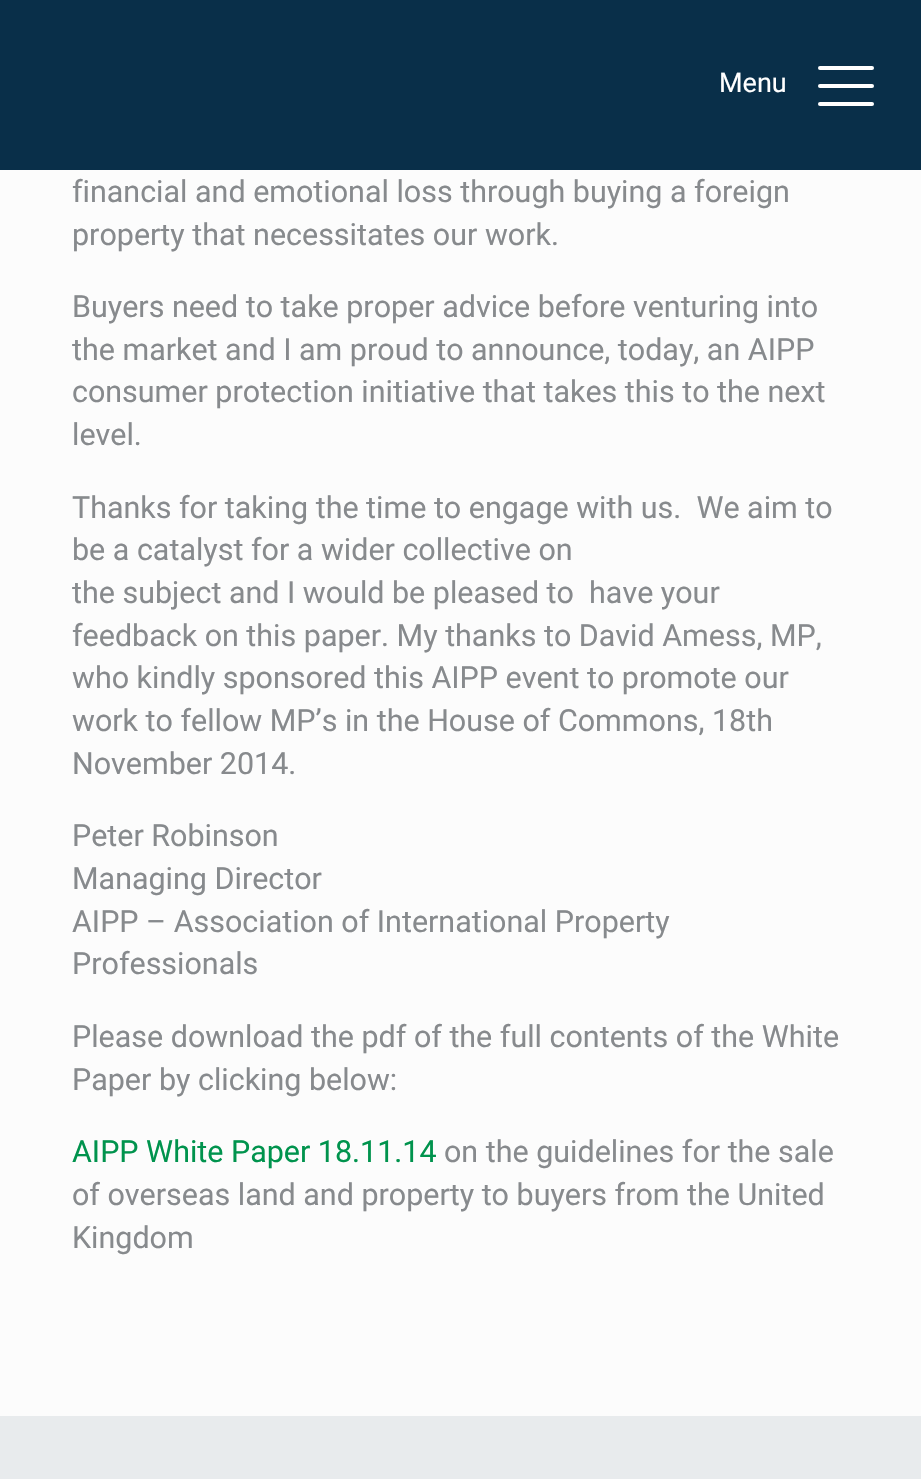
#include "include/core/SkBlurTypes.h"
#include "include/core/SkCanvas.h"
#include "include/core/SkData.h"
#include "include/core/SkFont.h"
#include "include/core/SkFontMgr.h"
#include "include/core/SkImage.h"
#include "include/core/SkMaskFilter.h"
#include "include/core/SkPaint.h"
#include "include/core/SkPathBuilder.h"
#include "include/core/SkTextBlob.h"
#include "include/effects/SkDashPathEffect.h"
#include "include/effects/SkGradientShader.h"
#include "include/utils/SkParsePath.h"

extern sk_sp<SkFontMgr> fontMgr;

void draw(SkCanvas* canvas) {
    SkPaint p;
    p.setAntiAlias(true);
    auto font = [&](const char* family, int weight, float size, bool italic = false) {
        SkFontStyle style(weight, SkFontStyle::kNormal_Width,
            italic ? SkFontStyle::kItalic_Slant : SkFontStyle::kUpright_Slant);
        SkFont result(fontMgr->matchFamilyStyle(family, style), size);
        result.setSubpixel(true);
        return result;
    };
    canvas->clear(0xFFFCFCFC);
    p.setColor(0xFF092F49);
    canvas->drawRect(SkRect::MakeLTRB(0, 0, 921, 170), p);
    auto font1 = font("Roboto", 400, 27);
    p.setColor(0xFFFFFFFF);
    canvas->drawString("Menu", 719, 92, font1, p);
    canvas->drawRoundRect(SkRect::MakeLTRB(818, 66, 874, 70), 2, 2, p);
    canvas->drawRoundRect(SkRect::MakeLTRB(818, 84, 874, 88), 2, 2, p);
    canvas->drawRoundRect(SkRect::MakeLTRB(818, 102, 874, 106), 2, 2, p);
    auto font2 = font("Roboto", 400, 30.45f);
    p.setColor(0xFF878A8D);
    {
        const struct { const char* s; float x, y; } items[] = {
            {"financial and emotional loss through buying a foreign", 72, 202},
            {"property that necessitates our work.", 72, 245},
            {"Buyers need to take proper advice before venturing into", 72, 317},
            {"the market and I am proud to announce, today, an AIPP", 72, 360},
            {"consumer protection initiative that takes this to the next", 72, 402},
            {"level.", 72, 445},
            {"Thanks for taking the time to engage with us.  We aim to", 72, 518},
            {"be a catalyst for a wider collective on", 72, 560},
            {"the subject and I would be pleased to  have your", 72, 603},
            {"feedback on this paper. My thanks to David Amess, MP,", 72, 646},
            {"who kindly sponsored this AIPP event to promote our", 72, 688},
            {"work to fellow MP’s in the House of Commons, 18th", 72, 731},
            {"November 2014.", 72, 774},
            {"Peter Robinson", 72, 846},
            {"Managing Director", 72, 889},
            {"AIPP – Association of International Property", 72, 932},
            {"Professionals", 72, 974},
            {"Please download the pdf of the full contents of the White", 72, 1047},
            {"Paper by clicking below:", 72, 1090},
        };
        for (auto [s, x, y] : items) {
            canvas->drawString(s, x, y, font2, p);
        }
    }
    p.setColor(0xFF00934D);
    canvas->drawString("AIPP White Paper 18.11.14", 72, 1162, font2, p);
    p.setColor(0xFF878A8D);
    {
        const struct { const char* s; float x, y; } items[] = {
            {"on the guidelines for the sale", 444, 1162},
            {"of overseas land and property to buyers from the United", 72, 1205},
            {"Kingdom", 72, 1248},
        };
        for (auto [s, x, y] : items) {
            canvas->drawString(s, x, y, font2, p);
        }
    }
    p.setColor(0xFFE8EBED);
    canvas->drawRect(SkRect::MakeLTRB(0, 1416, 921, 1479), p);
}
